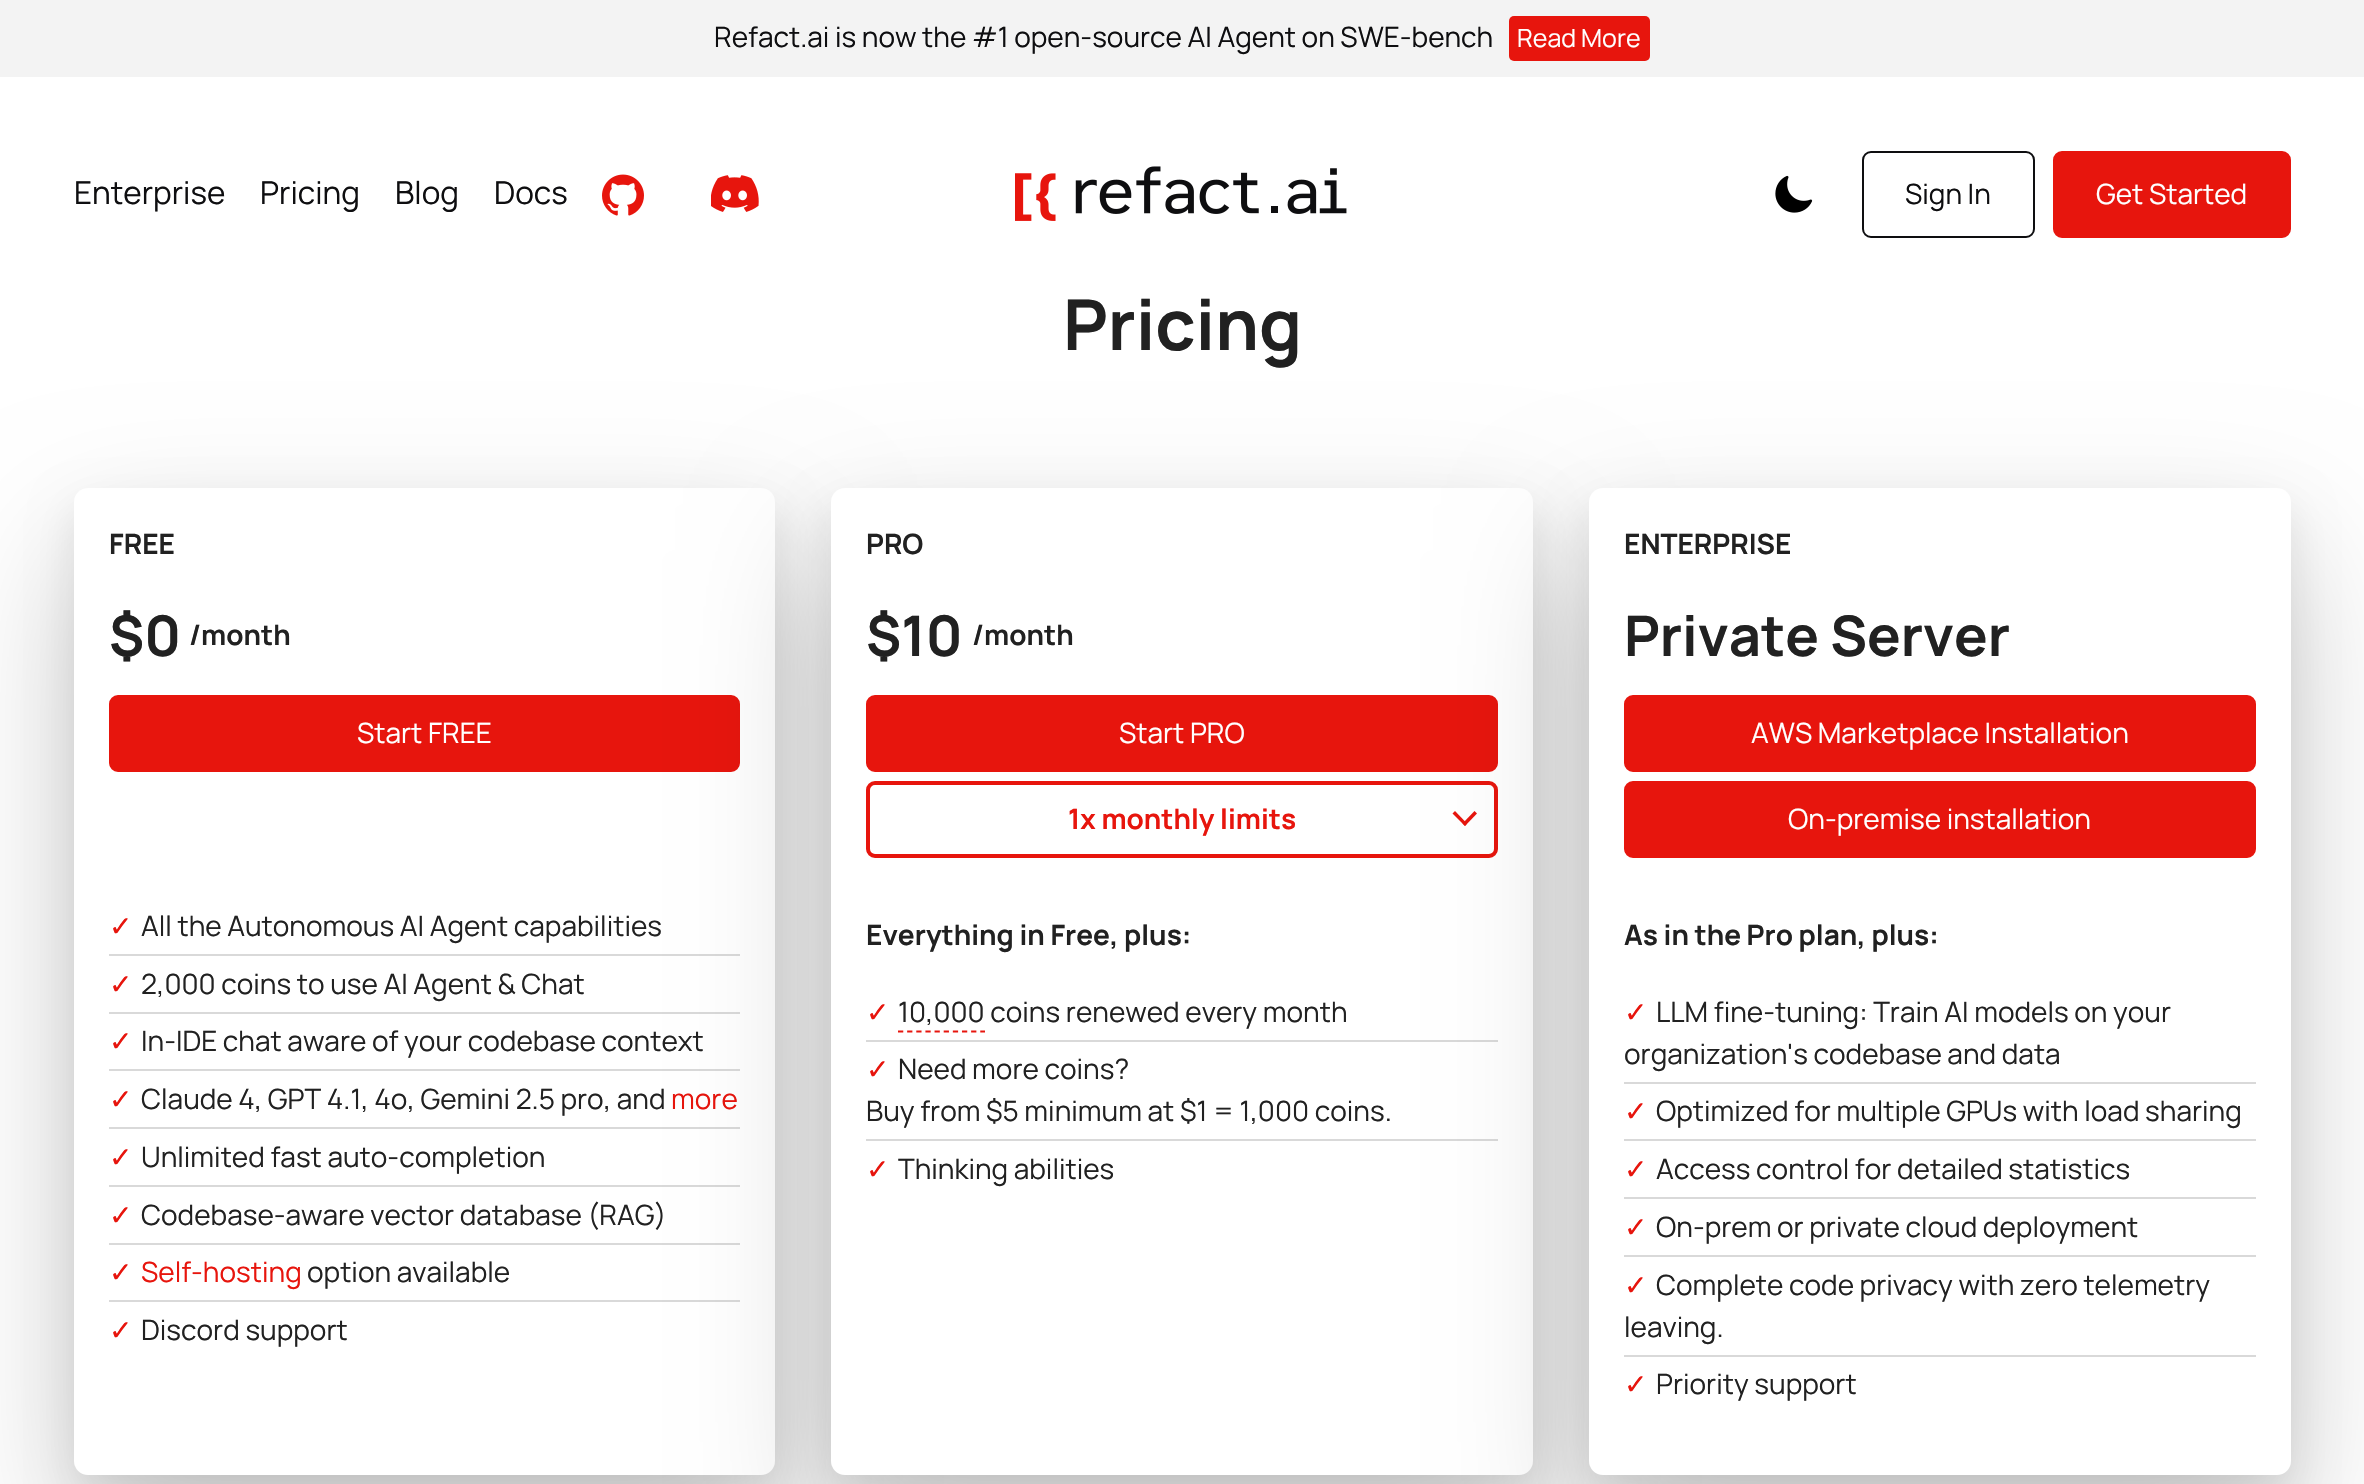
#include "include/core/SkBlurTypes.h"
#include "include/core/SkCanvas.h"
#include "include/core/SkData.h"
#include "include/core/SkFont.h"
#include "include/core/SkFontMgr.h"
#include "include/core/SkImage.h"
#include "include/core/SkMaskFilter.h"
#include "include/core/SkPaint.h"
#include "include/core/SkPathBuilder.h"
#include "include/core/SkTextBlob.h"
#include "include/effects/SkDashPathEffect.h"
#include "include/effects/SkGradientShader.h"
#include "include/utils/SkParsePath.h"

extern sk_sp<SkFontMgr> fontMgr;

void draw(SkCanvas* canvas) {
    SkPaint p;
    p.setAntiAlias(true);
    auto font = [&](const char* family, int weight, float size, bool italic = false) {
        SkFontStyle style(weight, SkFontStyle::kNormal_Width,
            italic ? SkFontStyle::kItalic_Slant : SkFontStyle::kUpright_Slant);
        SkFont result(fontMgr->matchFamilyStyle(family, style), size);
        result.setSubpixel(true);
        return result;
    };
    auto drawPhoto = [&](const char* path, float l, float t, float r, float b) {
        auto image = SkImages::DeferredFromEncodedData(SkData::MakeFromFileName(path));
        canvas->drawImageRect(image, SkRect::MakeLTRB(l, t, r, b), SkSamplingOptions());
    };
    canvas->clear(0xFFFFFFFF);
    p.setColor(0xFFF3F3F3);
    canvas->drawRect(SkRect::MakeLTRB(0, 0, 2364, 77), p);
    auto font1 = font("Manrope", 400, 28);
    p.setColor(0xFF0E0E10);
    canvas->drawString("Refact.ai is now the #1 open-source AI Agent on SWE-bench", 714, 47, font1, p);
    p.setColor(0xFFE7150D);
    canvas->drawRoundRect(SkRect::MakeLTRB(1509, 16, 1650, 61), 5, 5, p);
    auto font2 = font("Manrope", 400, 25);
    p.setColor(0xFFFFFFFF);
    canvas->drawString("Read More", 1517, 47, font2, p);
    auto font3 = font("Manrope", 400, 31.5f);
    p.setColor(0xFF0E0E10);
    {
        const struct { const char* s; float x, y; } items[] = {
            {"Enterprise", 74, 204},
            {"Pricing", 260, 204},
            {"Blog", 395, 204},
            {"Docs", 494, 204},
        };
        for (auto [s, x, y] : items) {
            canvas->drawString(s, x, y, font3, p);
        }
    }
    drawPhoto("media/1.png", 602, 174, 644, 216);
    drawPhoto("media/2.png", 711, 175, 759, 212);
    drawPhoto("media/3.png", 1015, 166, 1347, 221);
    drawPhoto("media/4.png", 1775, 175, 1813, 213);
    p.setStyle(SkPaint::kStroke_Style);
    p.setStrokeWidth(2);
    canvas->drawRoundRect(SkRect::MakeLTRB(1863, 152, 2034, 237), 8, 8, p);
    p.setStyle(SkPaint::kFill_Style);
    canvas->drawString("Sign In", 1905, 204, font1, p);
    p.setColor(0xFFE7150D);
    canvas->drawRoundRect(SkRect::MakeLTRB(2054, 152, 2290, 237), 8, 8, p);
    p.setStyle(SkPaint::kStroke_Style);
    canvas->drawRoundRect(SkRect::MakeLTRB(2054, 152, 2290, 237), 8, 8, p);
    p.setStyle(SkPaint::kFill_Style);
    p.setColor(0xFFFFFFFF);
    canvas->drawString("Get Started", 2096, 204, font1, p);
    auto font4 = font("Manrope", 700, 70);
    p.setColor(0xFF212121);
    canvas->drawString("Pricing", 1063, 350, font4, p);
    p.setColor(0x33000000);
    p.setMaskFilter(SkMaskFilter::MakeBlur(kNormal_SkBlurStyle, 71));
    canvas->drawRoundRect(SkRect::MakeLTRB(74, 550, 775, 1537), 14, 14, p);
    p.setMaskFilter(nullptr);
    p.setColor(0x17000000);
    p.setMaskFilter(SkMaskFilter::MakeBlur(kNormal_SkBlurStyle, 21.5f));
    canvas->drawRoundRect(SkRect::MakeLTRB(74, 508, 775, 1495), 14, 14, p);
    p.setMaskFilter(nullptr);
    p.setColor(0xFFFFFFFF);
    canvas->drawRoundRect(SkRect::MakeLTRB(74, 488, 775, 1475), 14, 14, p);
    auto font5 = font("Manrope", 700, 28);
    p.setColor(0xFF212121);
    canvas->drawString("FREE", 109, 554, font5, p);
    auto font6 = font("Manrope", 700, 56);
    canvas->drawString("$0", 109, 656, font6, p);
    canvas->drawString("/month", 189, 645, font5, p);
    p.setColor(0xFFE7150D);
    canvas->drawRoundRect(SkRect::MakeLTRB(111, 697, 738, 770), 7, 7, p);
    p.setStyle(SkPaint::kStroke_Style);
    p.setStrokeWidth(4);
    canvas->drawRoundRect(SkRect::MakeLTRB(111, 697, 738, 770), 7, 7, p);
    p.setStyle(SkPaint::kFill_Style);
    p.setColor(0xFFFFFFFF);
    canvas->drawString("Start FREE", 357, 743, font1, p);
    p.setColor(0xFFD9D9D9);
    canvas->drawRect(SkRect::MakeLTRB(109, 954, 740, 956), p);
    auto font7 = font("DejaVu Sans", 400, 28);
    p.setColor(0xFFE7150D);
    canvas->drawString("✓", 109, 936, font7, p);
    p.setColor(0xFF212121);
    canvas->drawString("All the Autonomous AI Agent capabilities", 141, 936, font1, p);
    p.setColor(0xFFD9D9D9);
    canvas->drawRect(SkRect::MakeLTRB(109, 1012, 740, 1014), p);
    p.setColor(0xFFE7150D);
    canvas->drawString("✓", 109, 994, font7, p);
    p.setColor(0xFF212121);
    canvas->drawString("2,000 coins to use AI Agent & Chat", 141, 994, font1, p);
    p.setColor(0xFFD9D9D9);
    canvas->drawRect(SkRect::MakeLTRB(109, 1069, 740, 1071), p);
    p.setColor(0xFFE7150D);
    canvas->drawString("✓", 109, 1051, font7, p);
    p.setColor(0xFF212121);
    canvas->drawString("In-IDE chat aware of your codebase context", 141, 1051, font1, p);
    p.setColor(0xFFD9D9D9);
    canvas->drawRect(SkRect::MakeLTRB(109, 1127, 740, 1129), p);
    p.setColor(0xFFE7150D);
    canvas->drawString("✓", 109, 1109, font7, p);
    p.setColor(0xFF212121);
    canvas->drawString("Claude 4, GPT 4.1, 4o, Gemini 2.5 pro, and", 141, 1109, font1, p);
    p.setColor(0xFFE7150D);
    canvas->drawString("more", 671, 1109, font1, p);
    p.setColor(0xFFD9D9D9);
    canvas->drawRect(SkRect::MakeLTRB(109, 1185, 740, 1187), p);
    p.setColor(0xFFE7150D);
    canvas->drawString("✓", 109, 1167, font7, p);
    p.setColor(0xFF212121);
    canvas->drawString("Unlimited fast auto-completion", 141, 1167, font1, p);
    p.setColor(0xFFD9D9D9);
    canvas->drawRect(SkRect::MakeLTRB(109, 1243, 740, 1245), p);
    p.setColor(0xFFE7150D);
    canvas->drawString("✓", 109, 1225, font7, p);
    p.setColor(0xFF212121);
    canvas->drawString("Codebase-aware vector database (RAG)", 141, 1225, font1, p);
    p.setColor(0xFFD9D9D9);
    canvas->drawRect(SkRect::MakeLTRB(109, 1300, 740, 1302), p);
    p.setColor(0xFFE7150D);
    canvas->drawString("✓", 109, 1282, font7, p);
    canvas->drawString("Self-hosting", 141, 1282, font1, p);
    p.setColor(0xFF212121);
    canvas->drawString("option available", 307, 1282, font1, p);
    p.setColor(0xFFE7150D);
    canvas->drawString("✓", 109, 1340, font7, p);
    p.setColor(0xFF212121);
    canvas->drawString("Discord support", 141, 1340, font1, p);
    p.setColor(0x33000000);
    p.setMaskFilter(SkMaskFilter::MakeBlur(kNormal_SkBlurStyle, 71));
    canvas->drawRoundRect(SkRect::MakeLTRB(831, 550, 1533, 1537), 14, 14, p);
    p.setMaskFilter(nullptr);
    p.setColor(0x17000000);
    p.setMaskFilter(SkMaskFilter::MakeBlur(kNormal_SkBlurStyle, 21.5f));
    canvas->drawRoundRect(SkRect::MakeLTRB(831, 508, 1533, 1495), 14, 14, p);
    p.setMaskFilter(nullptr);
    p.setColor(0xFFFFFFFF);
    canvas->drawRoundRect(SkRect::MakeLTRB(831, 488, 1533, 1475), 14, 14, p);
    p.setColor(0xFF212121);
    canvas->drawString("PRO", 866, 554, font5, p);
    canvas->drawString("$10", 866, 656, font6, p);
    canvas->drawString("/month", 972, 645, font5, p);
    p.setColor(0xFFE7150D);
    canvas->drawRoundRect(SkRect::MakeLTRB(868, 697, 1496, 770), 7, 7, p);
    p.setStyle(SkPaint::kStroke_Style);
    canvas->drawRoundRect(SkRect::MakeLTRB(868, 697, 1496, 770), 7, 7, p);
    p.setStyle(SkPaint::kFill_Style);
    p.setColor(0xFFFFFFFF);
    canvas->drawString("Start PRO", 1119, 743, font1, p);
    p.setStyle(SkPaint::kStroke_Style);
    p.setColor(0xFFE7150D);
    canvas->drawRoundRect(SkRect::MakeLTRB(868, 783, 1496, 856), 7, 7, p);
    p.setStyle(SkPaint::kFill_Style);
    canvas->drawString("1x monthly limits", 1068, 829, font5, p);
    canvas->drawPath(SkPathBuilder().moveTo(1477, 813.5f).lineTo(1465, 826).lineTo(1462.5f, 823.5f).lineTo(1474.5f, 811).close().detach(), p);
    canvas->drawPath(SkPathBuilder().moveTo(1467, 823.5f).lineTo(1465, 826).lineTo(1452.5f, 813.5f).lineTo(1455, 811).close().detach(), p);
    p.setColor(0xFF212121);
    canvas->drawString("Everything in Free, plus:", 866, 945, font5, p);
    p.setColor(0xFFD9D9D9);
    canvas->drawRect(SkRect::MakeLTRB(866, 1040, 1498, 1042), p);
    p.setColor(0xFFE7150D);
    canvas->drawString("✓", 866, 1022, font7, p);
    p.setColor(0xFF212121);
    canvas->drawString("10,000 coins renewed every month", 898, 1022, font1, p);
    p.setStyle(SkPaint::kStroke_Style);
    p.setStrokeWidth(1.8f);
    p.setColor(0xFFE7150D);
    p.setPathEffect(SkDashPathEffect::Make({{5.25f, 3.89f}}, 0));
    canvas->drawPath(SkPathBuilder().moveTo(898, 1031.5f).lineTo(985, 1031.5f).detach(), p);
    p.setPathEffect(nullptr);
    p.setStyle(SkPaint::kFill_Style);
    p.setColor(0xFFD9D9D9);
    canvas->drawRect(SkRect::MakeLTRB(866, 1139, 1498, 1141), p);
    p.setColor(0xFFE7150D);
    canvas->drawString("✓", 866, 1079, font7, p);
    p.setColor(0xFF212121);
    canvas->drawString("Need more coins?", 898, 1079, font1, p);
    canvas->drawString("Buy from $5 minimum at $1 = 1,000 coins.", 866, 1121, font1, p);
    p.setColor(0xFFE7150D);
    canvas->drawString("✓", 866, 1179, font7, p);
    p.setColor(0xFF212121);
    canvas->drawString("Thinking abilities", 898, 1179, font1, p);
    p.setColor(0x33000000);
    p.setMaskFilter(SkMaskFilter::MakeBlur(kNormal_SkBlurStyle, 71));
    canvas->drawRoundRect(SkRect::MakeLTRB(1589, 550, 2291, 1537), 14, 14, p);
    p.setMaskFilter(nullptr);
    p.setColor(0x17000000);
    p.setMaskFilter(SkMaskFilter::MakeBlur(kNormal_SkBlurStyle, 21.5f));
    canvas->drawRoundRect(SkRect::MakeLTRB(1589, 508, 2291, 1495), 14, 14, p);
    p.setMaskFilter(nullptr);
    p.setColor(0xFFFFFFFF);
    canvas->drawRoundRect(SkRect::MakeLTRB(1589, 488, 2291, 1475), 14, 14, p);
    p.setColor(0xFF212121);
    canvas->drawString("ENTERPRISE", 1624, 554, font5, p);
    canvas->drawString("Private Server", 1624, 656, font6, p);
    p.setColor(0xFFE7150D);
    canvas->drawRoundRect(SkRect::MakeLTRB(1626, 697, 2254, 770), 7, 7, p);
    p.setStyle(SkPaint::kStroke_Style);
    p.setStrokeWidth(4);
    canvas->drawRoundRect(SkRect::MakeLTRB(1626, 697, 2254, 770), 7, 7, p);
    p.setStyle(SkPaint::kFill_Style);
    p.setColor(0xFFFFFFFF);
    canvas->drawString("AWS Marketplace Installation", 1751, 743, font1, p);
    p.setColor(0xFFE7150D);
    canvas->drawRoundRect(SkRect::MakeLTRB(1626, 783, 2254, 856), 7, 7, p);
    p.setStyle(SkPaint::kStroke_Style);
    canvas->drawRoundRect(SkRect::MakeLTRB(1626, 783, 2254, 856), 7, 7, p);
    p.setStyle(SkPaint::kFill_Style);
    p.setColor(0xFFFFFFFF);
    canvas->drawString("On-premise installation", 1788, 829, font1, p);
    p.setColor(0xFF212121);
    canvas->drawString("As in the Pro plan, plus:", 1624, 945, font5, p);
    p.setColor(0xFFD9D9D9);
    canvas->drawRect(SkRect::MakeLTRB(1624, 1082, 2256, 1084), p);
    p.setColor(0xFFE7150D);
    canvas->drawString("✓", 1624, 1022, font7, p);
    p.setColor(0xFF212121);
    canvas->drawString("LLM fine-tuning: Train AI models on your", 1656, 1022, font1, p);
    canvas->drawString("organization's codebase and data", 1624, 1064, font1, p);
    p.setColor(0xFFD9D9D9);
    canvas->drawRect(SkRect::MakeLTRB(1624, 1139, 2256, 1141), p);
    p.setColor(0xFFE7150D);
    canvas->drawString("✓", 1624, 1121, font7, p);
    p.setColor(0xFF212121);
    canvas->drawString("Optimized for multiple GPUs with load sharing", 1656, 1121, font1, p);
    p.setColor(0xFFD9D9D9);
    canvas->drawRect(SkRect::MakeLTRB(1624, 1197, 2256, 1199), p);
    p.setColor(0xFFE7150D);
    canvas->drawString("✓", 1624, 1179, font7, p);
    p.setColor(0xFF212121);
    canvas->drawString("Access control for detailed statistics", 1656, 1179, font1, p);
    p.setColor(0xFFD9D9D9);
    canvas->drawRect(SkRect::MakeLTRB(1624, 1255, 2256, 1257), p);
    p.setColor(0xFFE7150D);
    canvas->drawString("✓", 1624, 1237, font7, p);
    p.setColor(0xFF212121);
    canvas->drawString("On-prem or private cloud deployment", 1656, 1237, font1, p);
    p.setColor(0xFFD9D9D9);
    canvas->drawRect(SkRect::MakeLTRB(1624, 1355, 2256, 1357), p);
    p.setColor(0xFFE7150D);
    canvas->drawString("✓", 1624, 1295, font7, p);
    p.setColor(0xFF212121);
    canvas->drawString("Complete code privacy with zero telemetry", 1656, 1295, font1, p);
    canvas->drawString("leaving.", 1624, 1337, font1, p);
    p.setColor(0xFFE7150D);
    canvas->drawString("✓", 1624, 1394, font7, p);
    p.setColor(0xFF212121);
    canvas->drawString("Priority support", 1656, 1394, font1, p);
}
